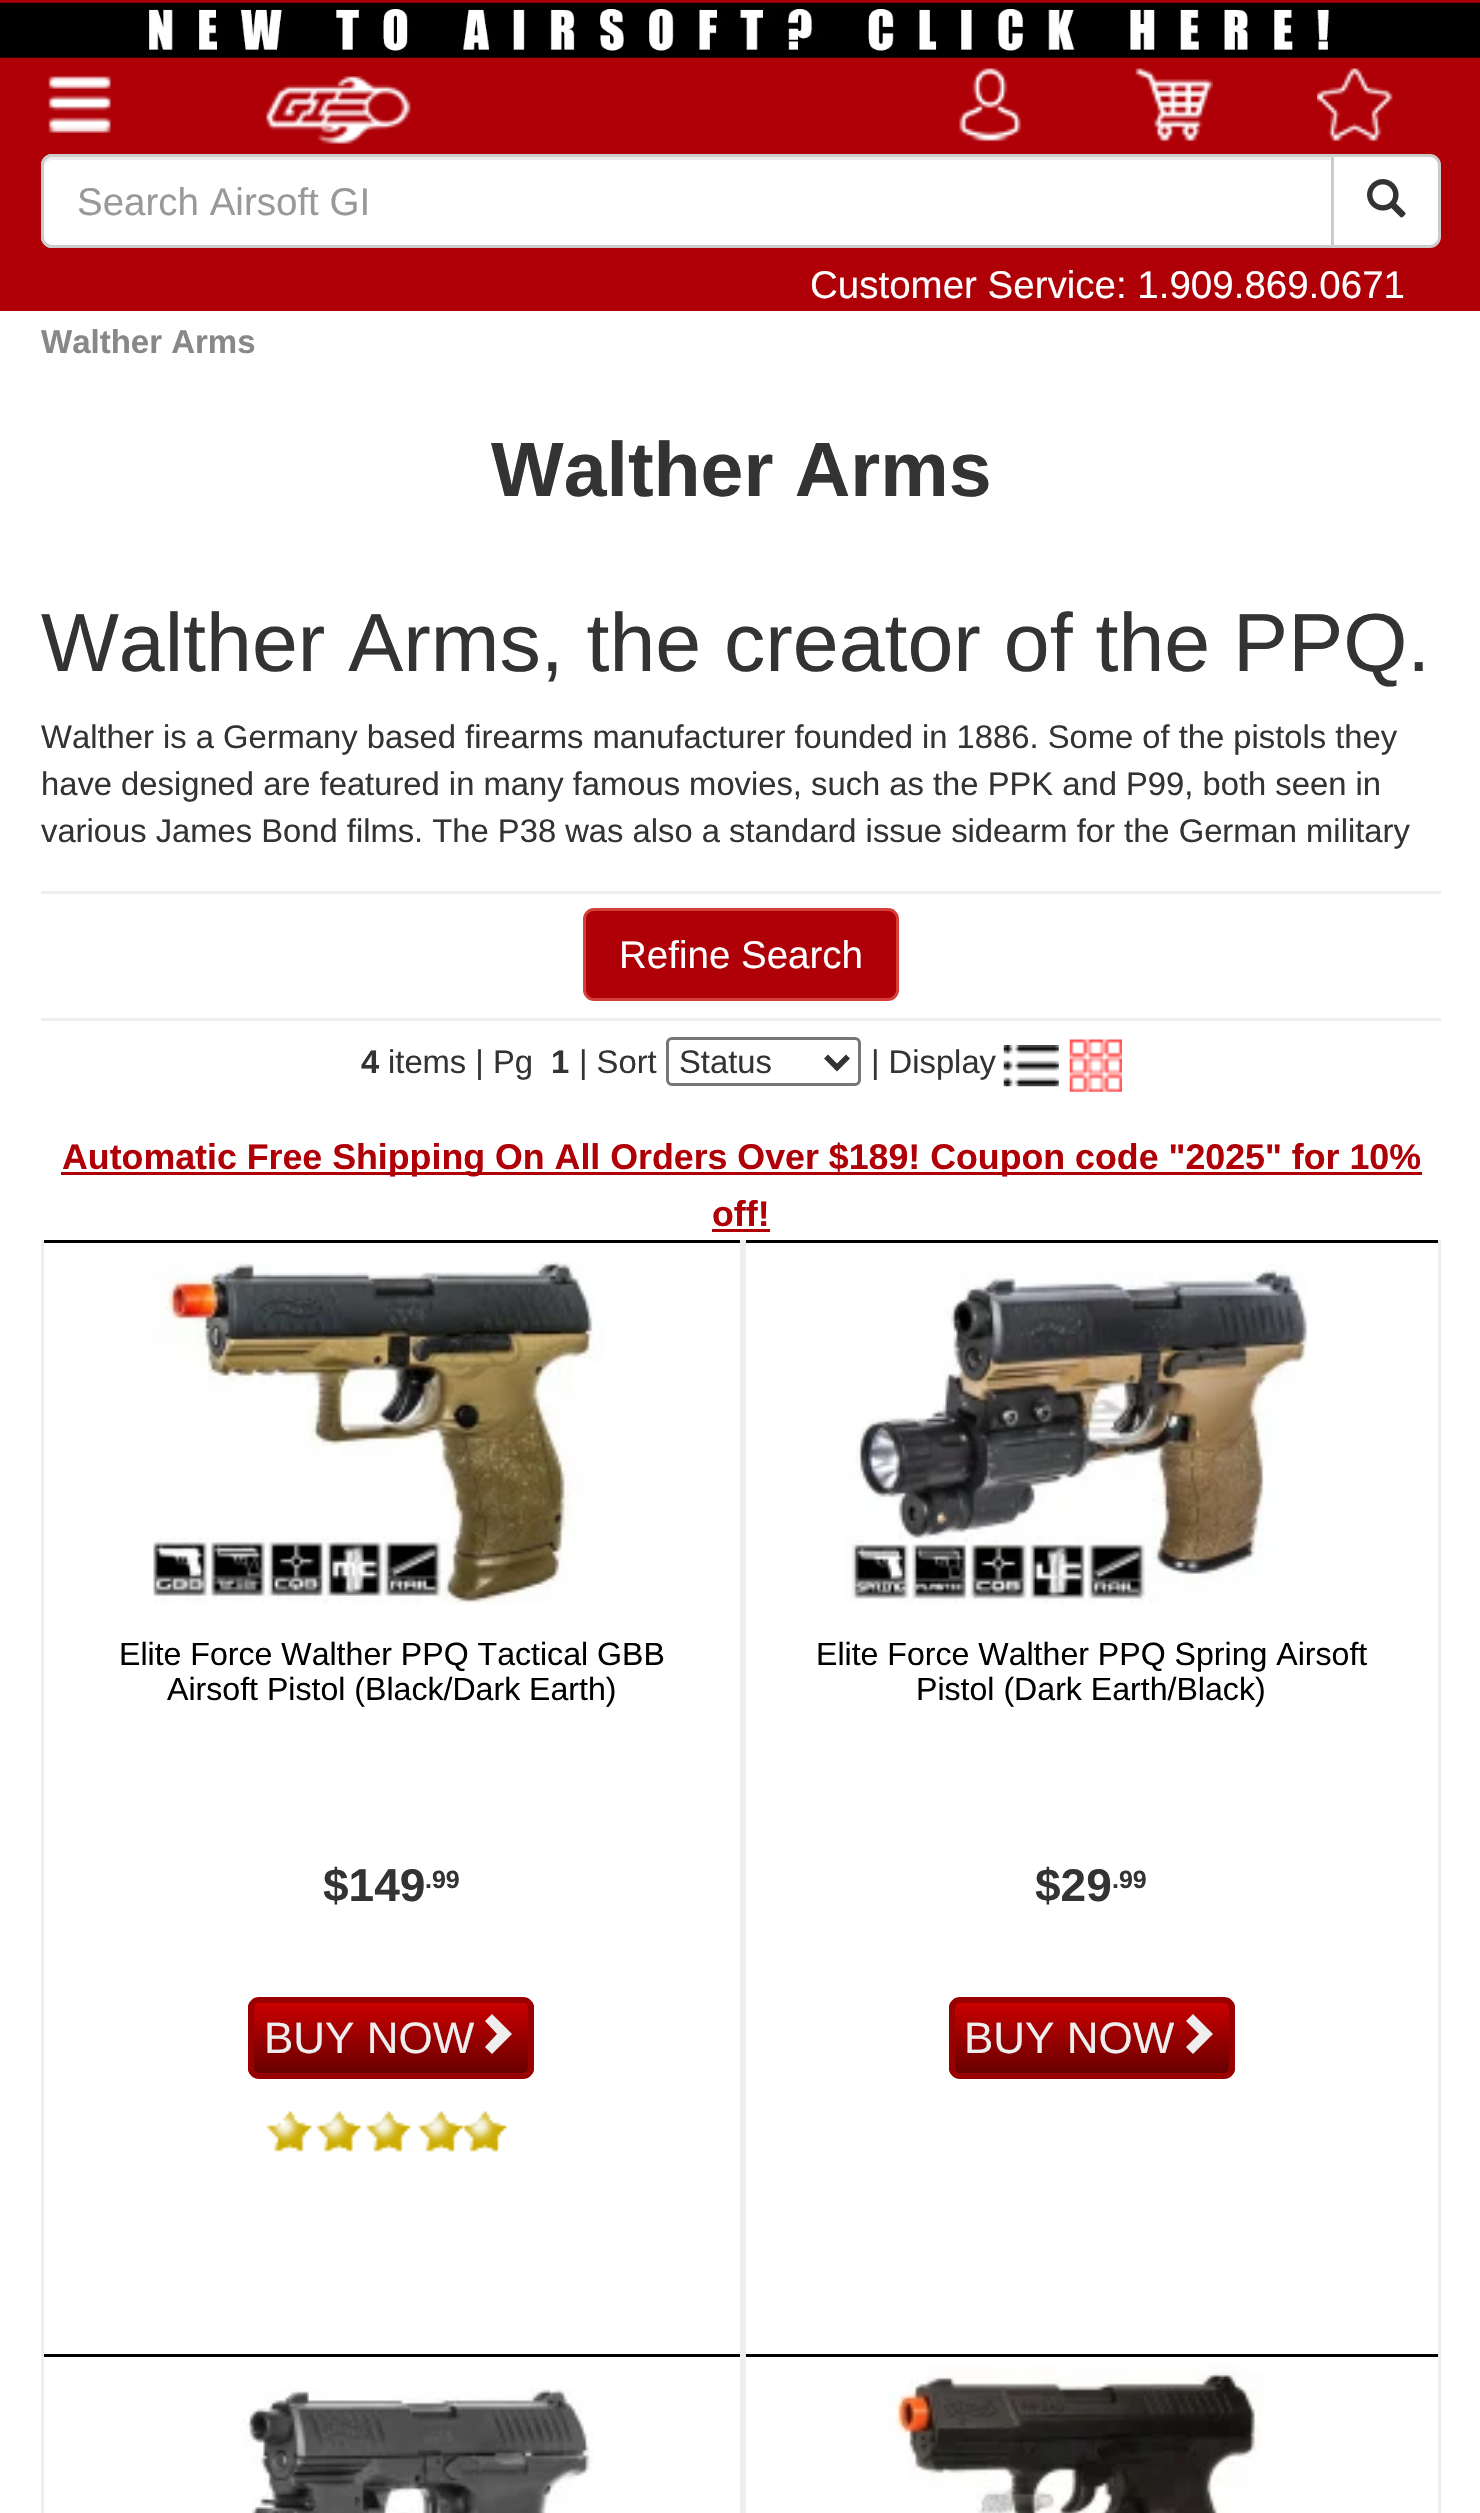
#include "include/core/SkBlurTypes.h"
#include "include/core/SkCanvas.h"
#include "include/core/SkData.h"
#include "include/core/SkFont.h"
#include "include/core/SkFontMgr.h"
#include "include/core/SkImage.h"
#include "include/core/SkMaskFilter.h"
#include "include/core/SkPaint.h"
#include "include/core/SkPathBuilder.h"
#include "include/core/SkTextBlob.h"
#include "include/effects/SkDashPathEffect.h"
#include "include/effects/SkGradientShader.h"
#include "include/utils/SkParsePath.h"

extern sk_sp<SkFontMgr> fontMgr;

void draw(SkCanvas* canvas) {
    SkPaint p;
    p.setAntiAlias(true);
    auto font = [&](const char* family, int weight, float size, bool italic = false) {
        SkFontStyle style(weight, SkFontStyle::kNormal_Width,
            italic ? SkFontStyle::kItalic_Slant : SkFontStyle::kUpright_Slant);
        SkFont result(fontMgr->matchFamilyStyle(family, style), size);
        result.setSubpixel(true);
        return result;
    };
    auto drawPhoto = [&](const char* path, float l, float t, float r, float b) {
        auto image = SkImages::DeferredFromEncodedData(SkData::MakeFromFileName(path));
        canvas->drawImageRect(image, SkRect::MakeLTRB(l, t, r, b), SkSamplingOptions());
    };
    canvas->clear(0xFFFFFFFF);
    p.setColor(0xFFAF0007);
    canvas->drawRect(SkRect::MakeLTRB(0, 0, 1480, 311), p);
    drawPhoto("media/1.png", 0, 2, 1480, 58);
    drawPhoto("media/2.png", 48, 76, 111, 133);
    drawPhoto("media/3.png", 266, 76, 411, 144);
    drawPhoto("media/4.png", 959, 68, 1022, 142);
    drawPhoto("media/5.png", 1135, 68, 1213, 142);
    drawPhoto("media/6.png", 1317, 68, 1393, 142);
    p.setColor(0xFFFFFFFF);
    canvas->drawPath(SkPathBuilder().moveTo(52, 154).lineTo(1334, 154).lineTo(1334, 248).lineTo(52, 248).cubicTo(46, 248, 41, 243, 41, 237).lineTo(41, 165).cubicTo(41, 159, 46, 154, 52, 154).close().detach(), p);
    p.setColor(0xFFECECEC);
    canvas->drawPath(SkPathBuilder().moveTo(52, 160).lineTo(1331, 160).lineTo(1331, 157).lineTo(52, 157).cubicTo(46, 157, 44, 163, 44, 168).cubicTo(44, 163, 48, 160, 52, 160).close().detach(), p);
    p.setStyle(SkPaint::kStroke_Style);
    p.setStrokeWidth(3);
    p.setColor(0xFFCCCCCC);
    canvas->drawPath(SkPathBuilder().moveTo(52, 155.5f).lineTo(1332.5f, 155.5f).lineTo(1332.5f, 246.5f).lineTo(52, 246.5f).cubicTo(47, 246.5f, 42.5f, 242, 42.5f, 237).lineTo(42.5f, 165).cubicTo(42.5f, 160, 47, 155.5f, 52, 155.5f).close().detach(), p);
    auto font1 = font("Liberation Sans", 400, 38.5f);
    p.setStyle(SkPaint::kFill_Style);
    p.setColor(0xFF999999);
    canvas->drawString("Search Airsoft GI", 77, 215, font1, p);
    p.setColor(0xFFFFFFFF);
    canvas->drawPath(SkPathBuilder().moveTo(1332.5f, 155.5f).lineTo(1430, 155.5f).cubicTo(1435, 155.5f, 1439.5f, 160, 1439.5f, 165).lineTo(1439.5f, 237).cubicTo(1439.5f, 242, 1435, 246.5f, 1430, 246.5f).lineTo(1332.5f, 246.5f).close().detach(), p);
    p.setStyle(SkPaint::kStroke_Style);
    p.setColor(0xFFCCCCCC);
    canvas->drawPath(SkPathBuilder().moveTo(1332.5f, 155.5f).lineTo(1430, 155.5f).cubicTo(1435, 155.5f, 1439.5f, 160, 1439.5f, 165).lineTo(1439.5f, 237).cubicTo(1439.5f, 242, 1435, 246.5f, 1430, 246.5f).lineTo(1332.5f, 246.5f).close().detach(), p);
    drawPhoto("media/7.png", 1367, 179, 1406, 218);
    p.setStyle(SkPaint::kFill_Style);
    p.setColor(0xFFFFFFFF);
    canvas->drawString("Customer Service: 1.909.869.0671", 810, 298, font1, p);
    auto font2 = font("Liberation Sans", 700, 33);
    p.setColor(0xFF888888);
    canvas->drawString("Walther Arms", 41, 353, font2, p);
    auto font3 = font("Liberation Sans", 700, 77);
    p.setColor(0xFF333333);
    canvas->drawString("Walther Arms", 491, 496, font3, p);
    auto font4 = font("Liberation Sans", 400, 82.5f);
    canvas->drawString("Walther Arms, the creator of the PPQ.", 41, 671, font4, p);
    auto font5 = font("Liberation Sans", 400, 32.75f);
    {
        const struct { const char* s; float x, y; } items[] = {
            {"Walther is a Germany based firearms manufacturer founded in 1886. Some of the pistols they", 41, 748},
            {"have designed are featured in many famous movies, such as the PPK and P99, both seen in", 41, 795},
            {"various James Bond films. The P38 was also a standard issue sidearm for the German military", 41, 842},
        };
        for (auto [s, x, y] : items) {
            canvas->drawString(s, x, y, font5, p);
        }
    }
    p.setColor(0xFFEEEEEE);
    canvas->drawRect(SkRect::MakeLTRB(41, 891, 1441, 894), p);
    p.setColor(0xFFAF0007);
    canvas->drawRoundRect(SkRect::MakeLTRB(584.5f, 909.5f, 897.5f, 999.5f), 9.5f, 9.5f, p);
    p.setStyle(SkPaint::kStroke_Style);
    p.setColor(0xFFD43F3A);
    canvas->drawRoundRect(SkRect::MakeLTRB(584.5f, 909.5f, 897.5f, 999.5f), 9.5f, 9.5f, p);
    p.setStyle(SkPaint::kFill_Style);
    p.setColor(0xFFFFFFFF);
    canvas->drawString("Refine Search", 619, 968, font1, p);
    p.setColor(0xFFEEEEEE);
    canvas->drawRect(SkRect::MakeLTRB(41, 1018, 1441, 1021), p);
    auto font6 = font("Liberation Sans", 700, 32.75f);
    p.setColor(0xFF333333);
    canvas->drawString("4", 361, 1073, font6, p);
    canvas->drawString("items | Pg", 388, 1073, font5, p);
    canvas->drawString("1", 551, 1073, font6, p);
    canvas->drawString("| Sort", 579, 1073, font5, p);
    p.setStyle(SkPaint::kStroke_Style);
    p.setColor(0xFF767676);
    canvas->drawRoundRect(SkRect::MakeLTRB(667.5f, 1038.5f, 859.5f, 1084.5f), 4.5f, 4.5f, p);
    p.setStrokeWidth(5.5f);
    p.setColor(0xFF333333);
    canvas->drawPath(SkPathBuilder().moveTo(826, 1056.5f).lineTo(837, 1067.5f).lineTo(848, 1056.5f).detach(), p);
    p.setStyle(SkPaint::kFill_Style);
    canvas->drawString("Status", 679, 1073, font5, p);
    canvas->drawString("| Display", 871, 1073, font5, p);
    drawPhoto("media/8.png", 1003, 1045, 1059, 1087);
    drawPhoto("media/9.png", 1069, 1039, 1122, 1092);
    p.setColor(0xFFAF0007);
    canvas->drawRect(SkRect::MakeLTRB(61, 1172, 1422, 1175), p);
    auto font7 = font("Liberation Sans", 700, 35.75f);
    canvas->drawString("Automatic Free Shipping On All Orders Over $189! Coupon code \"2025\" for 10%", 62, 1169, font7, p);
    canvas->drawString("off!", 712, 1226, font7, p);
    {
        const struct { float l, t, r, b; SkColor color; } items[] = {
            {712, 1229, 770, 1232, 0xFFAF0007},
            {41, 1240, 1441, 1243, 0xFF000000},
            {740, 1240, 746, 2354, 0xFFEEEEEE},
            {41, 1240, 44, 2354, 0xFFEEEEEE},
        };
        for (auto [l, t, r, b, color] : items) {
            p.setColor(color);
            canvas->drawRect(SkRect::MakeLTRB(l, t, r, b), p);
        }
    }
    drawPhoto("media/10.png", 153, 1261, 605, 1604);
    auto font8 = font("Liberation Sans", 400, 32.1f);
    p.setColor(0xFF000000);
    canvas->drawString("Elite Force Walther PPQ Tactical GBB", 119, 1665, font8, p);
    canvas->drawString("Airsoft Pistol (Black/Dark Earth)", 167, 1700, font8, p);
    auto font9 = font("Liberation Sans", 700, 46);
    p.setColor(0xFF333333);
    canvas->drawString("$149", 323, 1901, font9, p);
    auto font10 = font("Liberation Sans", 700, 25);
    canvas->drawString(".99", 425, 1888, font10, p);
    canvas->save();
    canvas->clipPath(SkPathBuilder().moveTo(259, 1997).lineTo(523, 1997).cubicTo(529, 1997, 534, 2002, 534, 2008).lineTo(534, 2068).cubicTo(534, 2074, 529, 2079, 523, 2079).lineTo(259, 2079).cubicTo(253, 2079, 248, 2074, 248, 2068).lineTo(248, 2008).cubicTo(248, 2002, 253, 1997, 259, 1997).close().detach(), true);
    {
        const SkColor colors[] = {0xFFCC0000, 0xFF660000};
        const float stops[] = {0, 1};
        const SkPoint ends[] = {{391, 2002}, {391, 2074}};
        p.setShader(SkGradientShader::MakeLinear(ends, colors, stops, 2, SkTileMode::kClamp));
        p.setAlpha(255);
    }
    canvas->drawRect(SkRect::MakeLTRB(248, 2002, 534, 2074), p);
    canvas->restore();
    p.setStyle(SkPaint::kStroke_Style);
    p.setStrokeWidth(6);
    p.setShader(nullptr);
    p.setColor(0xFF990000);
    canvas->drawRoundRect(SkRect::MakeLTRB(251, 2000, 531, 2076), 8, 8, p);
    auto font11 = font("Liberation Sans", 400, 44);
    p.setStyle(SkPaint::kFill_Style);
    p.setColor(0xFFEEEEEE);
    canvas->drawString("BUY NOW", 264, 2053, font11, p);
    canvas->drawPath(SkPathBuilder().moveTo(512, 2034).lineTo(492, 2054).lineTo(485, 2047).lineTo(497, 2034).lineTo(485, 2021).lineTo(492, 2014).close().detach(), p);
    drawPhoto("media/11.png", 266, 2111, 507, 2153);
    canvas->drawRect(SkRect::MakeLTRB(1438, 1240, 1441, 2354), p);
    drawPhoto("media/12.png", 845, 1263, 1308, 1604);
    p.setColor(0xFF000000);
    canvas->drawString("Elite Force Walther PPQ Spring Airsoft", 816, 1665, font8, p);
    canvas->drawString("Pistol (Dark Earth/Black)", 916, 1700, font8, p);
    p.setColor(0xFF333333);
    canvas->drawString("$29", 1035, 1901, font9, p);
    canvas->drawString(".99", 1112, 1888, font10, p);
    canvas->save();
    canvas->clipPath(SkPathBuilder().moveTo(960, 1997).lineTo(1224, 1997).cubicTo(1230, 1997, 1235, 2002, 1235, 2008).lineTo(1235, 2068).cubicTo(1235, 2074, 1230, 2079, 1224, 2079).lineTo(960, 2079).cubicTo(954, 2079, 949, 2074, 949, 2068).lineTo(949, 2008).cubicTo(949, 2002, 954, 1997, 960, 1997).close().detach(), true);
    {
        const SkColor colors[] = {0xFFCC0000, 0xFF660000};
        const float stops[] = {0, 1};
        const SkPoint ends[] = {{1092, 2002}, {1092, 2074}};
        p.setShader(SkGradientShader::MakeLinear(ends, colors, stops, 2, SkTileMode::kClamp));
        p.setAlpha(255);
    }
    canvas->drawRect(SkRect::MakeLTRB(949, 2002, 1235, 2074), p);
    canvas->restore();
    p.setStyle(SkPaint::kStroke_Style);
    p.setShader(nullptr);
    p.setColor(0xFF990000);
    canvas->drawRoundRect(SkRect::MakeLTRB(952, 2000, 1232, 2076), 8, 8, p);
    p.setStyle(SkPaint::kFill_Style);
    p.setColor(0xFFEEEEEE);
    canvas->drawString("BUY NOW", 964, 2053, font11, p);
    canvas->drawPath(SkPathBuilder().moveTo(1213, 2034).lineTo(1193, 2054).lineTo(1186, 2047).lineTo(1199, 2034).lineTo(1186, 2021).lineTo(1193, 2014).close().detach(), p);
    {
        const struct { float l, t, r, b; SkColor color; } items[] = {
            {41, 2354, 1441, 2357, 0xFF000000},
            {740, 2354, 746, 2513, 0xFFEEEEEE},
            {41, 2354, 44, 2513, 0xFFEEEEEE},
        };
        for (auto [l, t, r, b, color] : items) {
            p.setColor(color);
            canvas->drawRect(SkRect::MakeLTRB(l, t, r, b), p);
        }
    }
    drawPhoto("media/13.png", 242, 2388, 594, 2513);
    canvas->drawRect(SkRect::MakeLTRB(1438, 2354, 1441, 2513), p);
    drawPhoto("media/14.png", 888, 2365, 1263, 2513);
}
